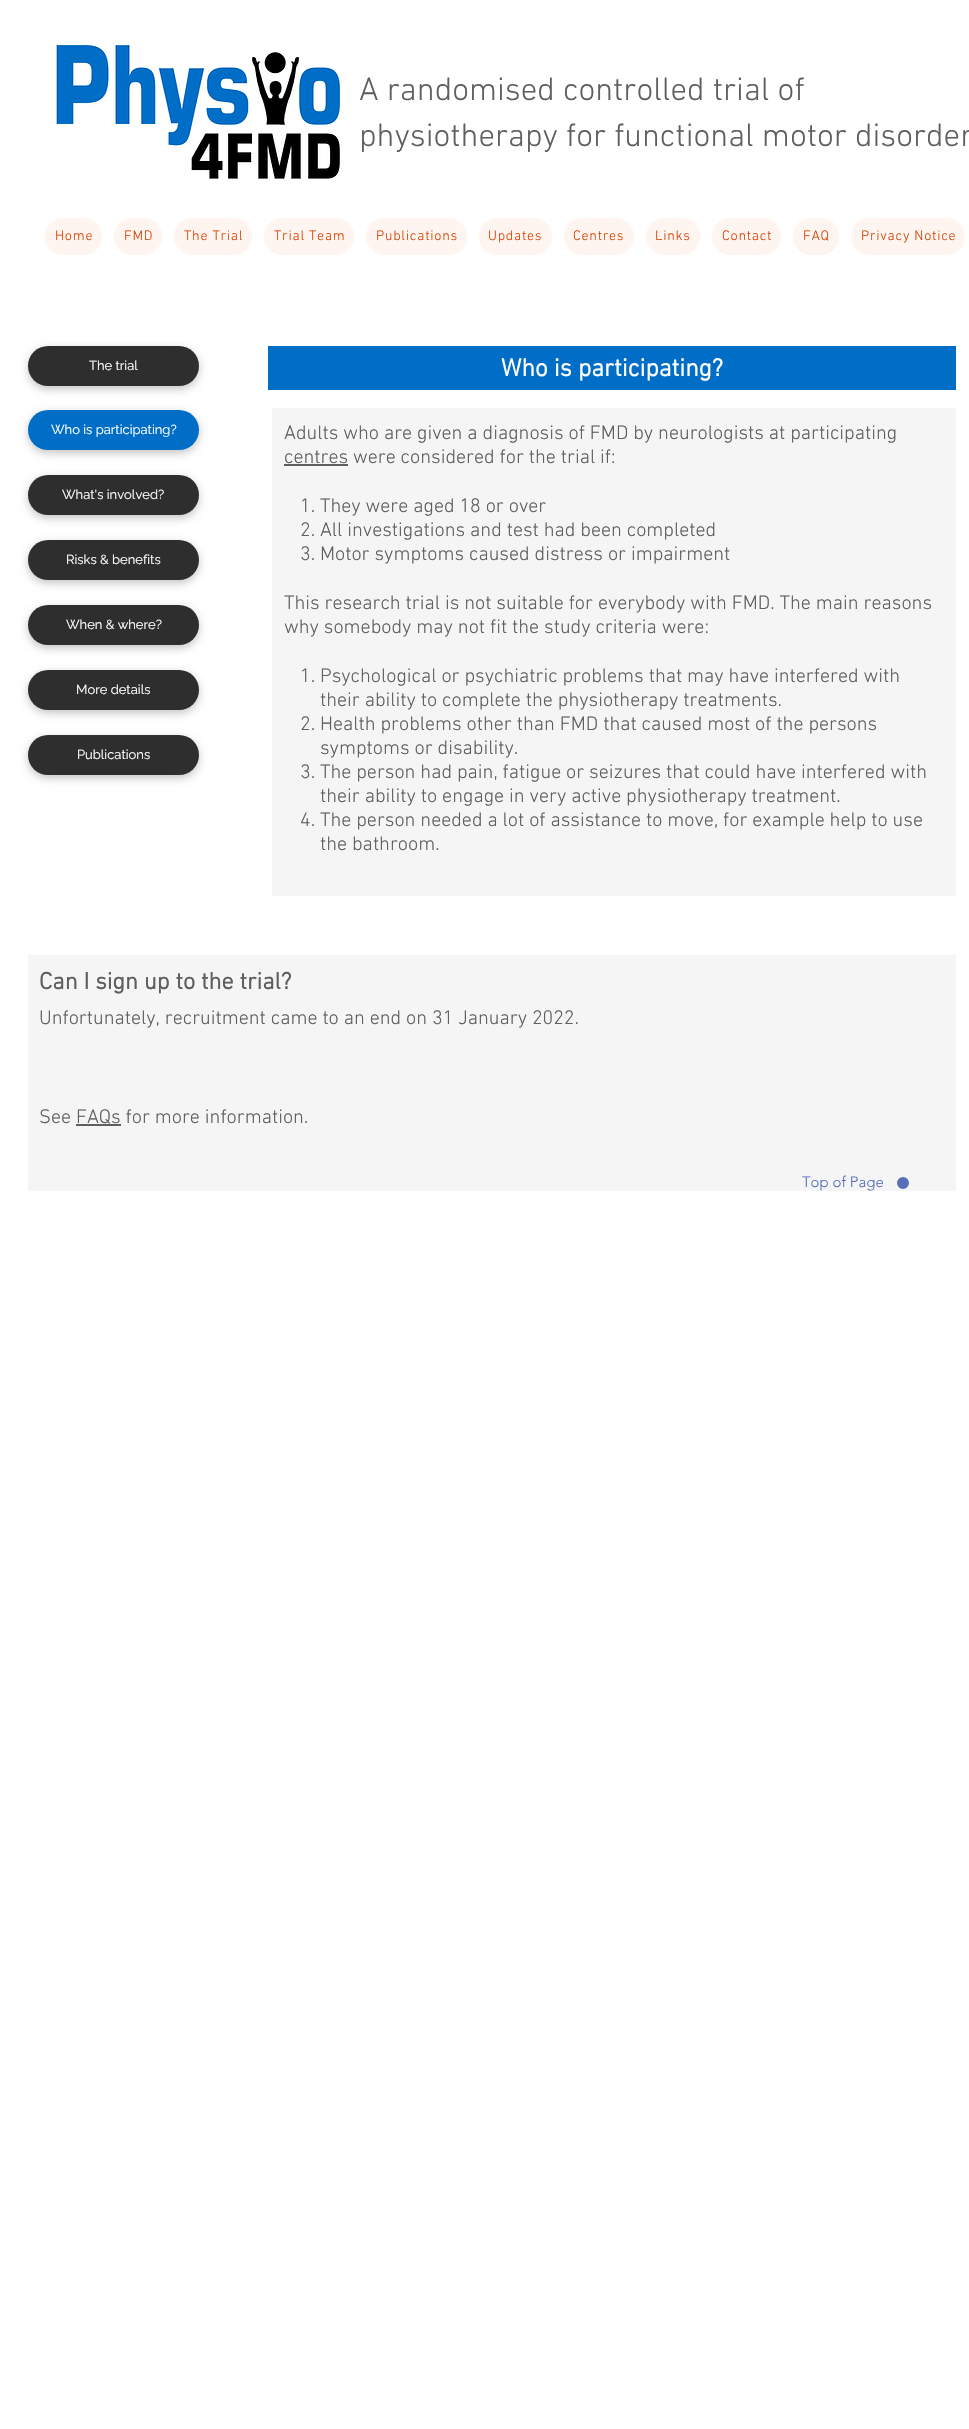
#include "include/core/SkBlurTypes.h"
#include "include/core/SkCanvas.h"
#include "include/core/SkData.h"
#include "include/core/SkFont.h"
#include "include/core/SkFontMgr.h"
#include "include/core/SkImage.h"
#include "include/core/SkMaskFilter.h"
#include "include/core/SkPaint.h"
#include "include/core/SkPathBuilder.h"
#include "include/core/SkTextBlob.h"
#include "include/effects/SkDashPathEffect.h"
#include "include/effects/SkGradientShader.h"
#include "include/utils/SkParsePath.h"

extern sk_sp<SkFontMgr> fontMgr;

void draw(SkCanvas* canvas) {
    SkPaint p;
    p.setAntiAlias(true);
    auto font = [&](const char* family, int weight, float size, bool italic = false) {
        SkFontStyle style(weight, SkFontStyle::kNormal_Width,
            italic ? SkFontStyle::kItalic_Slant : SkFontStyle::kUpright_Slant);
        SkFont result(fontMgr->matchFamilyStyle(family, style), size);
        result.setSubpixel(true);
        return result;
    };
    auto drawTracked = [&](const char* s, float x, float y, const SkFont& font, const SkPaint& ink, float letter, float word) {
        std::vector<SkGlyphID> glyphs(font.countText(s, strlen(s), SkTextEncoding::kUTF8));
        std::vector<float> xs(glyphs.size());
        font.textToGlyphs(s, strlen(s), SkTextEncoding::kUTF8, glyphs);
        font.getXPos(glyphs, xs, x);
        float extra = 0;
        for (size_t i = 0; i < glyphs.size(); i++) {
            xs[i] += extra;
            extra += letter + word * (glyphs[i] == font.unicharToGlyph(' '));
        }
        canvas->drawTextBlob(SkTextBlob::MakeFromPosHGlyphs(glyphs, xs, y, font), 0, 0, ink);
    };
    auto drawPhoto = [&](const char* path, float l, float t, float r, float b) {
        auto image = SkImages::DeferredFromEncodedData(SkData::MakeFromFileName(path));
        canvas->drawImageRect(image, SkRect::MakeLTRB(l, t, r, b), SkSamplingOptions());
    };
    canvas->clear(0xFFFFFFFF);
    drawPhoto("media/1.png", 56, 43, 342, 181);
    auto font1 = font("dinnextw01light", 300, 33);
    p.setColor(0xFF605E5E);
    canvas->drawString("A randomised controlled trial of", 359, 100, font1, p);
    canvas->drawString("physiotherapy for functional motor disorder", 359, 146, font1, p);
    p.setColor(0xFFFFF5F0);
    canvas->drawRoundRect(SkRect::MakeLTRB(44.5f, 217.5f, 102.5f, 255.5f), 19, 19, p);
    p.setStyle(SkPaint::kStroke_Style);
    p.setStrokeWidth(1);
    p.setColor(0xFFFFFFFF);
    canvas->drawRoundRect(SkRect::MakeLTRB(44.5f, 217.5f, 102.5f, 255.5f), 19, 19, p);
    auto font2 = font("dinnextw01light", 300, 14);
    p.setStyle(SkPaint::kFill_Style);
    p.setColor(0xFFD74000);
    drawTracked("Home", 55, 240, font2, p, 0.75f, 0);
    p.setColor(0xFFFFF5F0);
    canvas->drawRoundRect(SkRect::MakeLTRB(113.5f, 217.5f, 162.5f, 255.5f), 19, 19, p);
    p.setStyle(SkPaint::kStroke_Style);
    p.setColor(0xFFFFFFFF);
    canvas->drawRoundRect(SkRect::MakeLTRB(113.5f, 217.5f, 162.5f, 255.5f), 19, 19, p);
    p.setStyle(SkPaint::kFill_Style);
    p.setColor(0xFFD74000);
    drawTracked("FMD", 124, 240, font2, p, 0.75f, 0);
    p.setColor(0xFFFFF5F0);
    canvas->drawRoundRect(SkRect::MakeLTRB(173.5f, 217.5f, 252.5f, 255.5f), 19, 19, p);
    p.setStyle(SkPaint::kStroke_Style);
    p.setColor(0xFFFFFFFF);
    canvas->drawRoundRect(SkRect::MakeLTRB(173.5f, 217.5f, 252.5f, 255.5f), 19, 19, p);
    p.setStyle(SkPaint::kFill_Style);
    p.setColor(0xFFD74000);
    drawTracked("The Trial", 184, 240, font2, p, 0.75f, 0);
    p.setColor(0xFFFFF5F0);
    canvas->drawRoundRect(SkRect::MakeLTRB(263.5f, 217.5f, 354.5f, 255.5f), 19, 19, p);
    p.setStyle(SkPaint::kStroke_Style);
    p.setColor(0xFFFFFFFF);
    canvas->drawRoundRect(SkRect::MakeLTRB(263.5f, 217.5f, 354.5f, 255.5f), 19, 19, p);
    p.setStyle(SkPaint::kFill_Style);
    p.setColor(0xFFD74000);
    drawTracked("Trial Team", 274, 240, font2, p, 0.75f, 0);
    p.setColor(0xFFFFF5F0);
    canvas->drawRoundRect(SkRect::MakeLTRB(365.5f, 217.5f, 467.5f, 255.5f), 19, 19, p);
    p.setStyle(SkPaint::kStroke_Style);
    p.setColor(0xFFFFFFFF);
    canvas->drawRoundRect(SkRect::MakeLTRB(365.5f, 217.5f, 467.5f, 255.5f), 19, 19, p);
    p.setStyle(SkPaint::kFill_Style);
    p.setColor(0xFFD74000);
    drawTracked("Publications", 376, 240, font2, p, 0.75f, 0);
    p.setColor(0xFFFFF5F0);
    canvas->drawRoundRect(SkRect::MakeLTRB(478.5f, 217.5f, 552.5f, 255.5f), 19, 19, p);
    p.setStyle(SkPaint::kStroke_Style);
    p.setColor(0xFFFFFFFF);
    canvas->drawRoundRect(SkRect::MakeLTRB(478.5f, 217.5f, 552.5f, 255.5f), 19, 19, p);
    p.setStyle(SkPaint::kFill_Style);
    p.setColor(0xFFD74000);
    drawTracked("Updates", 488, 240, font2, p, 0.75f, 0);
    p.setColor(0xFFFFF5F0);
    canvas->drawRoundRect(SkRect::MakeLTRB(563.5f, 217.5f, 634.5f, 255.5f), 19, 19, p);
    p.setStyle(SkPaint::kStroke_Style);
    p.setColor(0xFFFFFFFF);
    canvas->drawRoundRect(SkRect::MakeLTRB(563.5f, 217.5f, 634.5f, 255.5f), 19, 19, p);
    p.setStyle(SkPaint::kFill_Style);
    p.setColor(0xFFD74000);
    drawTracked("Centres", 573, 240, font2, p, 0.75f, 0);
    p.setColor(0xFFFFF5F0);
    canvas->drawRoundRect(SkRect::MakeLTRB(645.5f, 217.5f, 700.5f, 255.5f), 19, 19, p);
    p.setStyle(SkPaint::kStroke_Style);
    p.setColor(0xFFFFFFFF);
    canvas->drawRoundRect(SkRect::MakeLTRB(645.5f, 217.5f, 700.5f, 255.5f), 19, 19, p);
    p.setStyle(SkPaint::kFill_Style);
    p.setColor(0xFFD74000);
    drawTracked("Links", 655, 240, font2, p, 0.75f, 0);
    p.setColor(0xFFFFF5F0);
    canvas->drawRoundRect(SkRect::MakeLTRB(711.5f, 217.5f, 781.5f, 255.5f), 19, 19, p);
    p.setStyle(SkPaint::kStroke_Style);
    p.setColor(0xFFFFFFFF);
    canvas->drawRoundRect(SkRect::MakeLTRB(711.5f, 217.5f, 781.5f, 255.5f), 19, 19, p);
    p.setStyle(SkPaint::kFill_Style);
    p.setColor(0xFFD74000);
    drawTracked("Contact", 722, 240, font2, p, 0.75f, 0);
    p.setColor(0xFFFFF5F0);
    canvas->drawRoundRect(SkRect::MakeLTRB(792.5f, 217.5f, 839.5f, 255.5f), 19, 19, p);
    p.setStyle(SkPaint::kStroke_Style);
    p.setColor(0xFFFFFFFF);
    canvas->drawRoundRect(SkRect::MakeLTRB(792.5f, 217.5f, 839.5f, 255.5f), 19, 19, p);
    p.setStyle(SkPaint::kFill_Style);
    p.setColor(0xFFD74000);
    drawTracked("FAQ", 803, 240, font2, p, 0.75f, 0);
    p.setColor(0xFFFFF5F0);
    canvas->drawRoundRect(SkRect::MakeLTRB(850.5f, 217.5f, 965.5f, 255.5f), 19, 19, p);
    p.setStyle(SkPaint::kStroke_Style);
    p.setColor(0xFFFFFFFF);
    canvas->drawRoundRect(SkRect::MakeLTRB(850.5f, 217.5f, 965.5f, 255.5f), 19, 19, p);
    p.setStyle(SkPaint::kFill_Style);
    p.setColor(0xFFD74000);
    drawTracked("Privacy Notice", 861, 240, font2, p, 0.75f, 0);
    p.setColor(0x3B000000);
    p.setMaskFilter(SkMaskFilter::MakeBlur(kNormal_SkBlurStyle, 4.5f));
    canvas->drawRoundRect(SkRect::MakeLTRB(28, 349, 199, 389), 20, 20, p);
    p.setMaskFilter(nullptr);
    p.setColor(0xFF2F2E2E);
    canvas->drawRoundRect(SkRect::MakeLTRB(28, 346, 199, 386), 20, 20, p);
    auto font3 = font("Raleway", 400, 13);
    p.setColor(0xFFFFFFFF);
    canvas->drawString("The trial", 89, 370, font3, p);
    p.setColor(0x3B000000);
    p.setMaskFilter(SkMaskFilter::MakeBlur(kNormal_SkBlurStyle, 4.5f));
    canvas->drawRoundRect(SkRect::MakeLTRB(28, 413, 199, 453), 20, 20, p);
    p.setMaskFilter(nullptr);
    p.setColor(0xFF006EC7);
    canvas->drawRoundRect(SkRect::MakeLTRB(28, 410, 199, 450), 20, 20, p);
    p.setColor(0xFFFFFFFF);
    canvas->drawString("Who is participating?", 51, 434, font3, p);
    p.setColor(0x3B000000);
    p.setMaskFilter(SkMaskFilter::MakeBlur(kNormal_SkBlurStyle, 4.5f));
    canvas->drawRoundRect(SkRect::MakeLTRB(28, 478, 199, 518), 20, 20, p);
    p.setMaskFilter(nullptr);
    p.setColor(0xFF2F2E2E);
    canvas->drawRoundRect(SkRect::MakeLTRB(28, 475, 199, 515), 20, 20, p);
    p.setColor(0xFFFFFFFF);
    canvas->drawString("What's involved?", 62, 499, font3, p);
    p.setColor(0x3B000000);
    p.setMaskFilter(SkMaskFilter::MakeBlur(kNormal_SkBlurStyle, 4.5f));
    canvas->drawRoundRect(SkRect::MakeLTRB(28, 543, 199, 583), 20, 20, p);
    p.setMaskFilter(nullptr);
    p.setColor(0xFF2F2E2E);
    canvas->drawRoundRect(SkRect::MakeLTRB(28, 540, 199, 580), 20, 20, p);
    p.setColor(0xFFFFFFFF);
    canvas->drawString("Risks & benefits", 66, 564, font3, p);
    p.setColor(0x3B000000);
    p.setMaskFilter(SkMaskFilter::MakeBlur(kNormal_SkBlurStyle, 4.5f));
    canvas->drawRoundRect(SkRect::MakeLTRB(28, 608, 199, 648), 20, 20, p);
    p.setMaskFilter(nullptr);
    p.setColor(0xFF2F2E2E);
    canvas->drawRoundRect(SkRect::MakeLTRB(28, 605, 199, 645), 20, 20, p);
    p.setColor(0xFFFFFFFF);
    canvas->drawString("When & where?", 66, 629, font3, p);
    p.setColor(0x3B000000);
    p.setMaskFilter(SkMaskFilter::MakeBlur(kNormal_SkBlurStyle, 4.5f));
    canvas->drawRoundRect(SkRect::MakeLTRB(28, 673, 199, 713), 20, 20, p);
    p.setMaskFilter(nullptr);
    p.setColor(0xFF2F2E2E);
    canvas->drawRoundRect(SkRect::MakeLTRB(28, 670, 199, 710), 20, 20, p);
    p.setColor(0xFFFFFFFF);
    canvas->drawString("More details", 76, 694, font3, p);
    p.setColor(0x3B000000);
    p.setMaskFilter(SkMaskFilter::MakeBlur(kNormal_SkBlurStyle, 4.5f));
    canvas->drawRoundRect(SkRect::MakeLTRB(28, 738, 199, 778), 20, 20, p);
    p.setMaskFilter(nullptr);
    p.setColor(0xFF2F2E2E);
    canvas->drawRoundRect(SkRect::MakeLTRB(28, 735, 199, 775), 20, 20, p);
    p.setColor(0xFFFFFFFF);
    canvas->drawString("Publications", 77, 759, font3, p);
    p.setColor(0xFF006EC7);
    canvas->drawRect(SkRect::MakeLTRB(268, 346, 956, 390), p);
    auto font4 = font("dinnextw01light", 700, 25);
    p.setColor(0xFFFFFFFF);
    canvas->drawString("Who is participating?", 501, 376, font4, p);
    p.setColor(0xFFF5F5F5);
    canvas->drawRect(SkRect::MakeLTRB(272, 408, 956, 896), p);
    auto font5 = font("dinnextw01light", 300, 20);
    p.setColor(0xFF605E5E);
    canvas->drawString("Adults who are given a diagnosis of FMD by neurologists at participating", 284, 439, font5, p);
    canvas->drawString("centres were considered for the trial if:", 284, 463, font5, p);
    canvas->drawRect(SkRect::MakeLTRB(284, 464, 348, 466), p);
    {
        const struct { const char* s; float x, y; } items[] = {
            {"1. They were aged 18 or over", 300, 512},
            {"2. All investigations and test had been completed", 300, 536},
            {"3. Motor symptoms caused distress or impairment", 300, 560},
            {"This research trial is not suitable for everybody with FMD. The main reasons", 284, 609},
            {"why somebody may not fit the study criteria were:", 284, 633},
            {"1. Psychological or psychiatric problems that may have interfered with", 300, 682},
            {"their ability to complete the physiotherapy treatments.", 320, 706},
            {"2. Health problems other than FMD that caused most of the persons", 300, 730},
            {"symptoms or disability.", 320, 754},
            {"3. The person had pain, fatigue or seizures that could have interfered with", 300, 778},
            {"their ability to engage in very active physiotherapy treatment.", 320, 802},
            {"4. The person needed a lot of assistance to move, for example help to use", 300, 826},
            {"the bathroom.", 320, 850},
        };
        for (auto [s, x, y] : items) {
            canvas->drawString(s, x, y, font5, p);
        }
    }
    p.setColor(0xFFF5F5F5);
    canvas->drawRect(SkRect::MakeLTRB(28, 955, 956, 1191), p);
    auto font6 = font("dinnextw01light", 700, 24);
    p.setColor(0xFF605E5E);
    canvas->drawString("Can I sign up to the trial?", 39, 989, font6, p);
    canvas->drawString("Unfortunately, recruitment came to an end on 31 January 2022.", 39, 1024, font5, p);
    canvas->drawString("See FAQs for more information.", 39, 1123, font5, p);
    canvas->drawRect(SkRect::MakeLTRB(76, 1124, 121, 1126), p);
    auto font7 = font("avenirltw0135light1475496", 300, 15);
    p.setColor(0xFF566FB8);
    canvas->drawString("Top of Page", 802, 1187, font7, p);
    canvas->drawCircle(903, 1183, 5, p);
    p.setStyle(SkPaint::kStroke_Style);
    p.setStrokeWidth(2);
    canvas->drawCircle(903, 1183, 5, p);
}
